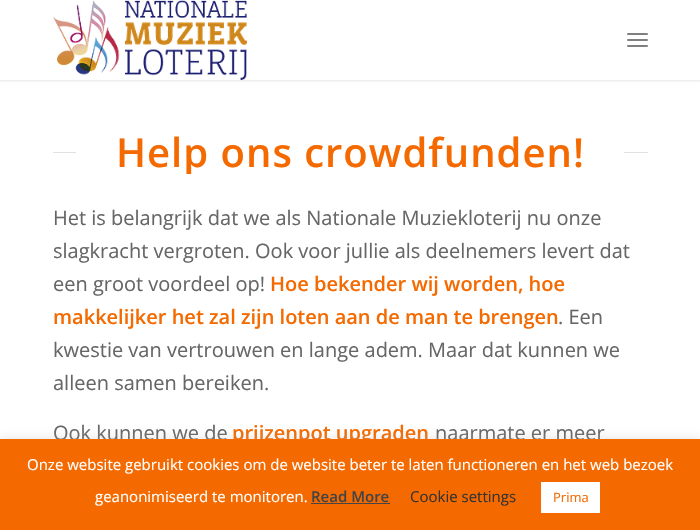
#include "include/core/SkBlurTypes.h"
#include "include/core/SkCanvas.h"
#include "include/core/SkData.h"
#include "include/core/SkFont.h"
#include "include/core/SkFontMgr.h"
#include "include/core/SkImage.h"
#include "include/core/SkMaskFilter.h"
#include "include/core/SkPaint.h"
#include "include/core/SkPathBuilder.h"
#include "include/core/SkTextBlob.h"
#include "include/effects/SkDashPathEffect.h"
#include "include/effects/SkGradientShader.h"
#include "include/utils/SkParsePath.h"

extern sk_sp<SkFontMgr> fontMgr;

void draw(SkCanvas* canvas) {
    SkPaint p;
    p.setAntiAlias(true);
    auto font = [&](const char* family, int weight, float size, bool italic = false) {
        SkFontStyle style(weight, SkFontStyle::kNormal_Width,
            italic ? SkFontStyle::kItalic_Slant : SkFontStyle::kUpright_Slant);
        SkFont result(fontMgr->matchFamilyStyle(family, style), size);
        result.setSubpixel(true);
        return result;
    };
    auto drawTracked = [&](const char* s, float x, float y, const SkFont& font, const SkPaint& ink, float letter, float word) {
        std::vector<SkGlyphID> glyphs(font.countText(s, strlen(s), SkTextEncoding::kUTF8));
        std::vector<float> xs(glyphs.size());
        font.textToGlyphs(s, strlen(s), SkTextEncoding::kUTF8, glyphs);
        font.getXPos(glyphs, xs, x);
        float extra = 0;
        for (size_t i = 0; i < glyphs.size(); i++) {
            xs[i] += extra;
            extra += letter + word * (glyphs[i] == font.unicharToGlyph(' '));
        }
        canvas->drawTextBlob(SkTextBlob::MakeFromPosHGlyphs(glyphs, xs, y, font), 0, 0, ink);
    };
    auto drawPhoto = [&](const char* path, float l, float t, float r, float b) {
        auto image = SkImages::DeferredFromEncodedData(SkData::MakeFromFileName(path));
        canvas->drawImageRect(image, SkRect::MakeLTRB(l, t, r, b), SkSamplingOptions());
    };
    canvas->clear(0xFFFFFFFF);
    p.setColor(0x1A000000);
    p.setMaskFilter(SkMaskFilter::MakeBlur(kNormal_SkBlurStyle, 1));
    canvas->drawRect(SkRect::MakeLTRB(-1, -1, 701, 81), p);
    p.setMaskFilter(nullptr);
    p.setColor(0xFFFFFFFF);
    canvas->drawRect(SkRect::MakeLTRB(0, 0, 700, 80), p);
    drawPhoto("media/1.png", 53, 0, 247, 80);
    p.setColor(0xFF808080);
    canvas->drawRoundRect(SkRect::MakeLTRB(627, 39, 648, 41), 1, 1, p);
    canvas->drawRoundRect(SkRect::MakeLTRB(627, 33, 648, 35), 1, 1, p);
    canvas->drawRoundRect(SkRect::MakeLTRB(627, 45, 648, 47), 1, 1, p);
    p.setColor(0xFFE1E1E1);
    canvas->drawRect(SkRect::MakeLTRB(53, 152, 76, 153), p);
    canvas->save();
    canvas->clipRect(SkRect::MakeLTRB(53, 130, 648, 174));
    auto font1 = font("Open Sans", 600, 40);
    p.setColor(0xFFF46A00);
    drawTracked("Help ons crowdfunden!", 116, 167, font1, p, 1, 0);
    canvas->restore();
    p.setColor(0xFFE1E1E1);
    canvas->drawRect(SkRect::MakeLTRB(624, 152, 648, 153), p);
    auto font2 = font("Open Sans", 400, 20);
    p.setColor(0xFF666666);
    {
        const struct { const char* s; float x, y; } items[] = {
            {"Het is belangrijk dat we als Nationale Muziekloterij nu onze", 53, 225},
            {"slagkracht vergroten. Ook voor jullie als deelnemers levert dat", 53, 258},
            {"een groot voordeel op!", 53, 291},
        };
        for (auto [s, x, y] : items) {
            canvas->drawString(s, x, y, font2, p);
        }
    }
    auto font3 = font("Open Sans", 600, 20);
    p.setColor(0xFFF46A00);
    canvas->drawString("Hoe bekender wij worden, hoe", 270, 291, font3, p);
    canvas->drawString("makkelijker het zal zijn loten aan de man te brengen", 53, 324, font3, p);
    p.setColor(0xFF666666);
    {
        const struct { const char* s; float x, y; } items[] = {
            {". Een", 558, 324},
            {"kwestie van vertrouwen en lange adem. Maar dat kunnen we", 53, 357},
            {"alleen samen bereiken.", 53, 390},
            {"Ook kunnen we de", 53, 440},
        };
        for (auto [s, x, y] : items) {
            canvas->drawString(s, x, y, font2, p);
        }
    }
    p.setColor(0xFFF46A00);
    canvas->drawString("prijzenpot upgraden", 232, 440, font3, p);
    p.setColor(0xFF666666);
    canvas->drawString("naarmate er meer", 435, 440, font2, p);
    p.setColor(0x4DACABAB);
    p.setMaskFilter(SkMaskFilter::MakeBlur(kNormal_SkBlurStyle, 5));
    canvas->drawRect(SkRect::MakeLTRB(0, 438, 700, 529), p);
    p.setMaskFilter(nullptr);
    p.setColor(0xFFF46A00);
    canvas->drawRect(SkRect::MakeLTRB(0, 439, 700, 530), p);
    auto font4 = font("Open Sans", 400, 15);
    p.setColor(0xFFFFFFFF);
    canvas->drawString("Onze website gebruikt cookies om de website beter te laten functioneren en het web bezoek", 27, 470, font4, p);
    canvas->drawString("geanonimiseerd te monitoren.", 95, 502, font4, p);
    auto font5 = font("Open Sans", 600, 15);
    p.setColor(0xFF444444);
    canvas->drawString("Read More", 311, 502, font5, p);
    canvas->drawRect(SkRect::MakeLTRB(311, 503, 390, 504), p);
    p.setColor(0xFF333333);
    canvas->drawString("Cookie settings", 410, 502, font4, p);
    p.setColor(0xFFFFFFFF);
    canvas->drawRect(SkRect::MakeLTRB(541, 482, 600, 513), p);
    auto font6 = font("Open Sans", 400, 13);
    p.setColor(0xFFF46A00);
    canvas->drawString("Prima", 553, 502, font6, p);
}
